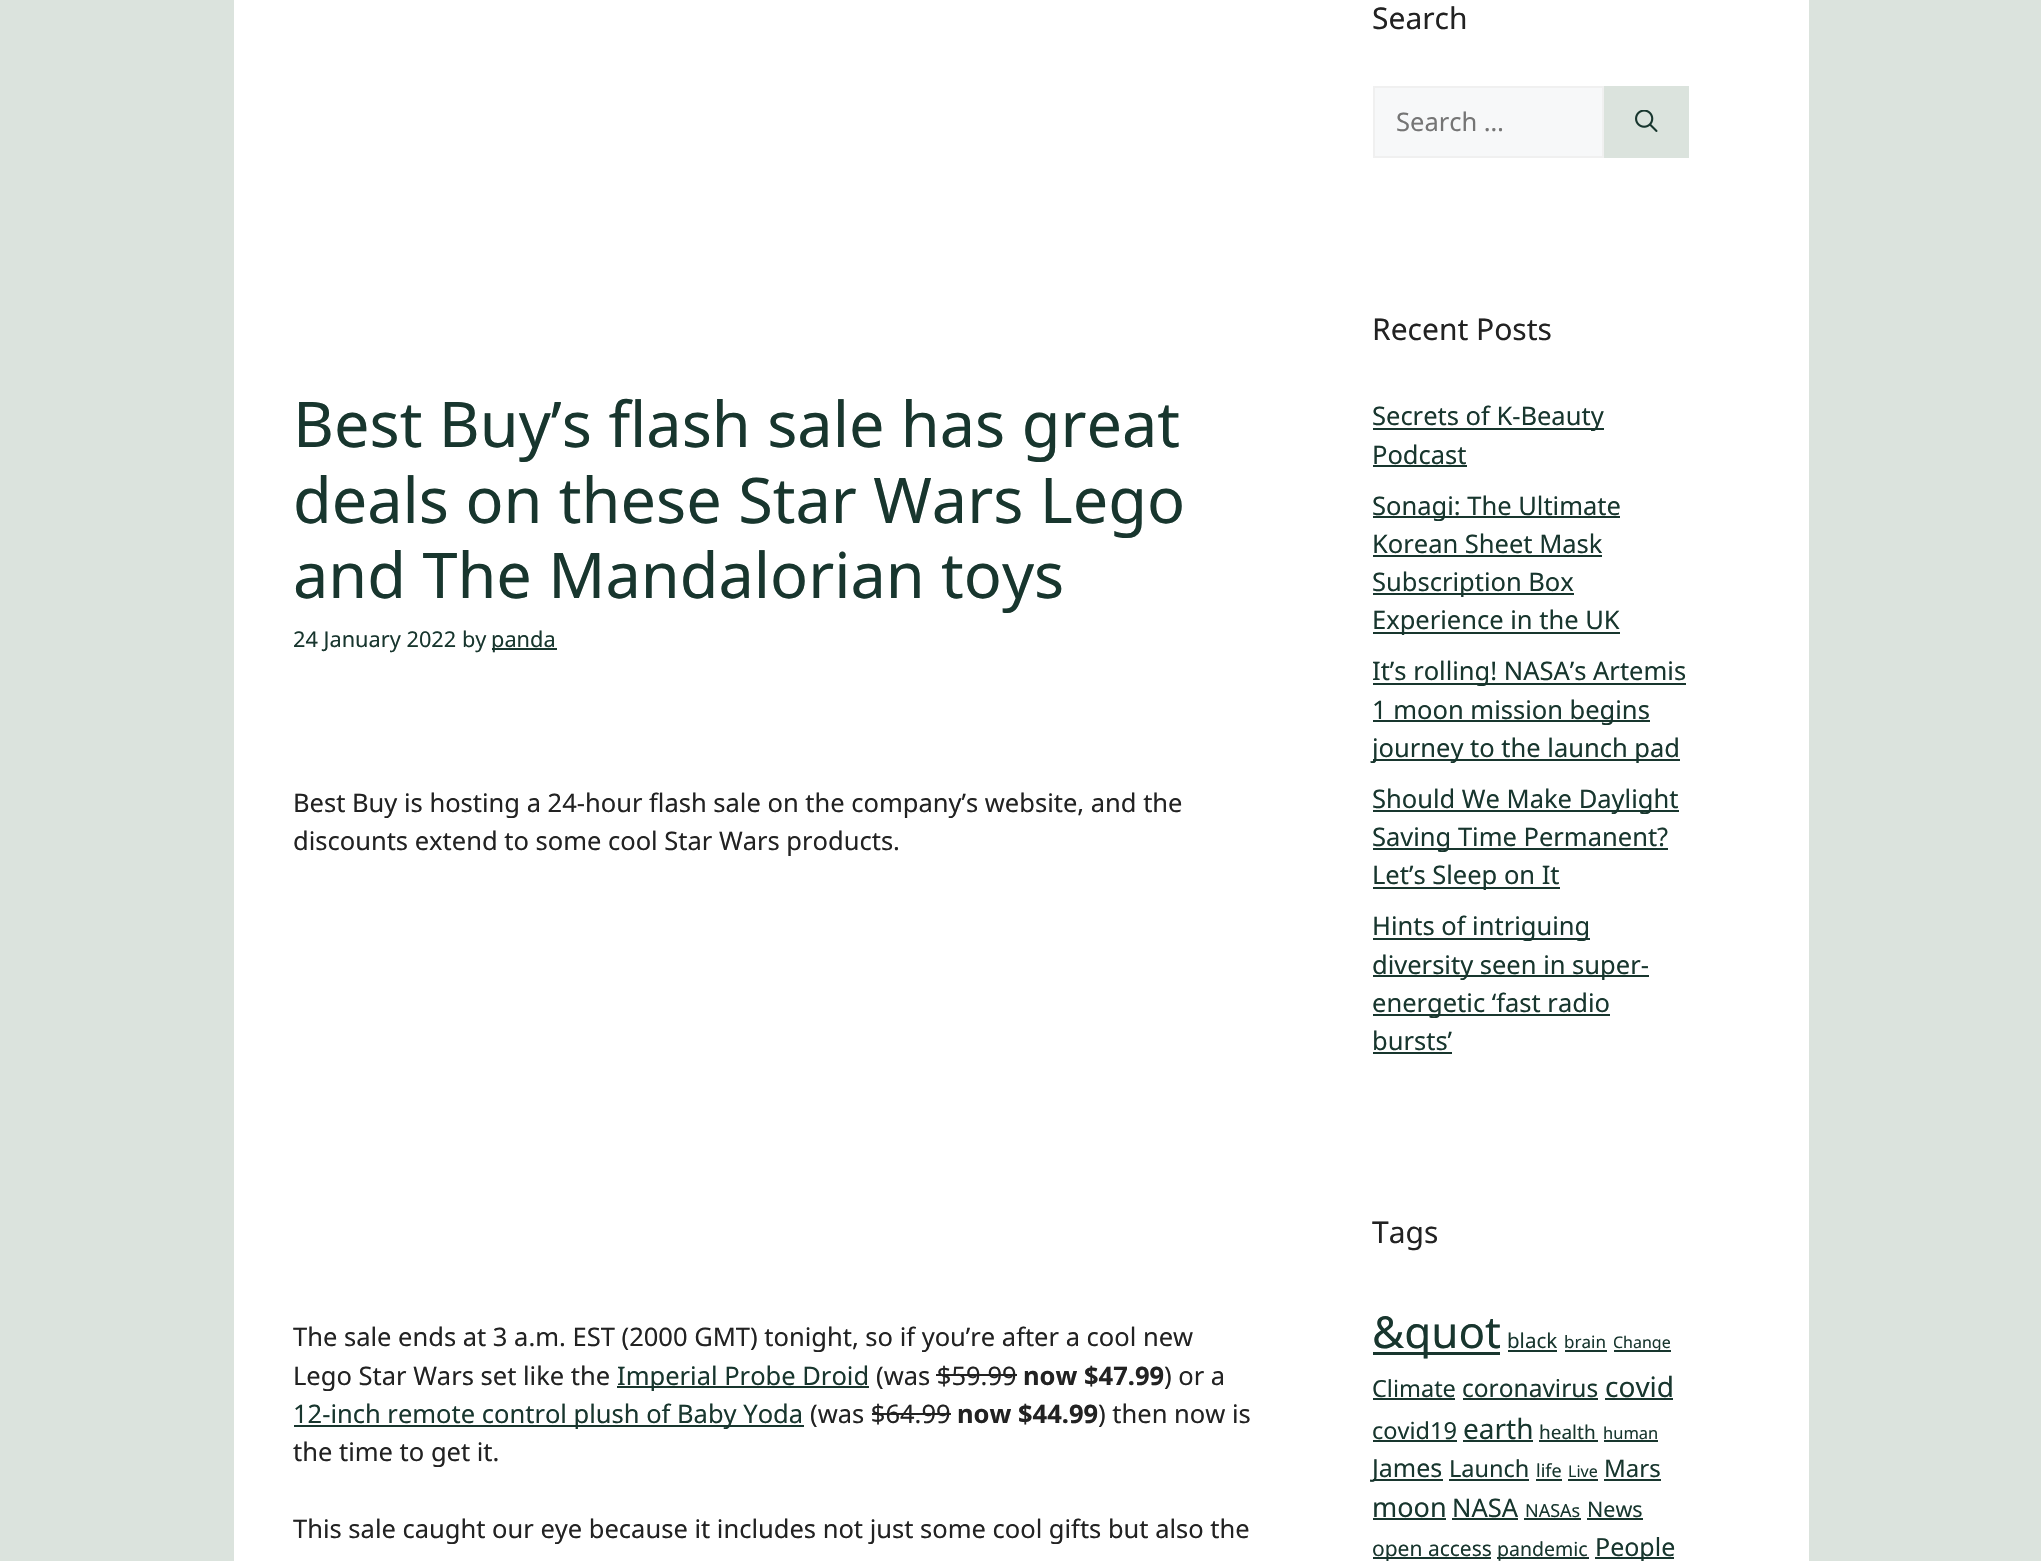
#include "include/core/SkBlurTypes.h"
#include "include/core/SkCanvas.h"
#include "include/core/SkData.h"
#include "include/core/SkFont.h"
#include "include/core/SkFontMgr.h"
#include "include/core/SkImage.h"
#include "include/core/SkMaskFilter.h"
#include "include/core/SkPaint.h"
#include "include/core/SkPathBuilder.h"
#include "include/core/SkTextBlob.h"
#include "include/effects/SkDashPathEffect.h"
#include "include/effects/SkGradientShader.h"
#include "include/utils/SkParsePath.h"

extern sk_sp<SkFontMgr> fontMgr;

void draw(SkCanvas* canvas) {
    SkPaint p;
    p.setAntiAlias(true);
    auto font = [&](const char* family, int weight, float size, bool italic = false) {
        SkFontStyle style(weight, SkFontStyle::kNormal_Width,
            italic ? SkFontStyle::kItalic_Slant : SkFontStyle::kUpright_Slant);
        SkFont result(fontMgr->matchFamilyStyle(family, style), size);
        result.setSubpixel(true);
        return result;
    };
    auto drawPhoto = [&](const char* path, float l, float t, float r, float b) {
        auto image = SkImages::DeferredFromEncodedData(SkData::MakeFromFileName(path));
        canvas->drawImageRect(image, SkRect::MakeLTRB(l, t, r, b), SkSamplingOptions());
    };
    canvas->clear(0xFFDBE3DD);
    p.setColor(0xFFFFFFFF);
    canvas->drawRect(SkRect::MakeLTRB(234, 0, 1809, 1561), p);
    auto font1 = font("Noto Sans", 400, 63);
    p.setColor(0xFF18362E);
    {
        const struct { const char* s; float x, y; } items[] = {
            {"Best Buy’s flash sale has great", 293, 447},
            {"deals on these Star Wars Lego", 293, 523},
            {"and The Mandalorian toys", 293, 598},
        };
        for (auto [s, x, y] : items) {
            canvas->drawString(s, x, y, font1, p);
        }
    }
    auto font2 = font("Noto Sans", 400, 21.75f);
    canvas->drawString("24 January 2022 by", 293, 647, font2, p);
    canvas->drawRect(SkRect::MakeLTRB(492, 648, 557, 650), p);
    canvas->drawString("panda", 491, 647, font2, p);
    auto font3 = font("Noto Sans", 400, 25.5f);
    p.setColor(0xFF222222);
    {
        const struct { const char* s; float x, y; } items[] = {
            {"Best Buy is hosting a 24-hour flash sale on the company’s website, and the", 293, 812},
            {"discounts extend to some cool Star Wars products.", 293, 850},
            {"The sale ends at 3 a.m. EST (2000 GMT) tonight, so if you’re after a cool new", 293, 1346},
            {"Lego Star Wars set like the", 293, 1385},
        };
        for (auto [s, x, y] : items) {
            canvas->drawString(s, x, y, font3, p);
        }
    }
    p.setColor(0xFF18362E);
    canvas->drawRect(SkRect::MakeLTRB(617, 1386, 869, 1388), p);
    canvas->drawString("Imperial Probe Droid", 617, 1385, font3, p);
    p.setColor(0xFF222222);
    canvas->drawString("(was $59.99", 876, 1385, font3, p);
    auto font4 = font("Noto Sans", 700, 25.5f);
    canvas->drawString("now $47.99", 1023, 1385, font4, p);
    canvas->drawString(") or a", 1164, 1385, font3, p);
    canvas->drawRect(SkRect::MakeLTRB(936, 1374, 1017, 1376), p);
    p.setColor(0xFF18362E);
    canvas->drawRect(SkRect::MakeLTRB(294, 1425, 804, 1427), p);
    canvas->drawString("12-inch remote control plush of Baby Yoda", 293, 1423, font3, p);
    p.setColor(0xFF222222);
    canvas->drawString("(was $64.99", 810, 1423, font3, p);
    canvas->drawString("now $44.99", 957, 1423, font4, p);
    canvas->drawString(") then now is", 1098, 1423, font3, p);
    canvas->drawRect(SkRect::MakeLTRB(872, 1413, 951, 1415), p);
    canvas->drawString("the time to get it.", 293, 1461, font3, p);
    canvas->drawString("This sale caught our eye because it includes not just some cool gifts but also the", 293, 1538, font3, p);
    auto font5 = font("Noto Sans", 400, 30);
    canvas->drawString("Search", 1372, 29, font5, p);
    p.setColor(0xFFF7F8F9);
    canvas->drawRect(SkRect::MakeLTRB(1374, 87, 1603, 157), p);
    p.setStyle(SkPaint::kStroke_Style);
    p.setStrokeWidth(2);
    p.setColor(0xFFF0F0F0);
    canvas->drawRect(SkRect::MakeLTRB(1374, 87, 1603, 157), p);
    p.setStyle(SkPaint::kFill_Style);
    p.setColor(0xFF757575);
    canvas->drawString("Search …", 1396, 131, font3, p);
    p.setColor(0xFFDBE3DD);
    canvas->drawRect(SkRect::MakeLTRB(1604, 86, 1689, 158), p);
    drawPhoto("media/1.png", 1635, 110, 1658, 132);
    p.setColor(0xFF222222);
    canvas->drawString("Recent Posts", 1372, 340, font5, p);
    p.setColor(0xFF18362E);
    canvas->drawRect(SkRect::MakeLTRB(1373, 428, 1604, 430), p);
    canvas->drawString("Secrets of K-Beauty", 1372, 425, font3, p);
    canvas->drawString("Podcast", 1372, 464, font3, p);
    canvas->drawRect(SkRect::MakeLTRB(1373, 465, 1467, 467), p);
    canvas->drawRect(SkRect::MakeLTRB(1373, 516, 1620, 518), p);
    canvas->drawString("Sonagi: The Ultimate", 1372, 515, font3, p);
    canvas->drawString("Korean Sheet Mask", 1372, 553, font3, p);
    canvas->drawRect(SkRect::MakeLTRB(1373, 555, 1602, 557), p);
    canvas->drawRect(SkRect::MakeLTRB(1373, 593, 1574, 595), p);
    canvas->drawString("Subscription Box", 1372, 591, font3, p);
    canvas->drawRect(SkRect::MakeLTRB(1373, 632, 1620, 634), p);
    canvas->drawString("Experience in the UK", 1372, 629, font3, p);
    canvas->drawRect(SkRect::MakeLTRB(1373, 683, 1686, 685), p);
    canvas->drawString("It’s rolling! NASA’s Artemis", 1372, 680, font3, p);
    canvas->drawRect(SkRect::MakeLTRB(1373, 720, 1650, 722), p);
    canvas->drawString("1 moon mission begins", 1372, 719, font3, p);
    canvas->drawRect(SkRect::MakeLTRB(1373, 759, 1680, 761), p);
    canvas->drawString("journey to the launch pad", 1372, 757, font3, p);
    canvas->drawRect(SkRect::MakeLTRB(1373, 810, 1679, 812), p);
    canvas->drawString("Should We Make Daylight", 1372, 808, font3, p);
    canvas->drawRect(SkRect::MakeLTRB(1373, 848, 1668, 850), p);
    canvas->drawString("Saving Time Permanent?", 1372, 846, font3, p);
    canvas->drawRect(SkRect::MakeLTRB(1373, 887, 1560, 889), p);
    canvas->drawString("Let’s Sleep on It", 1372, 884, font3, p);
    canvas->drawRect(SkRect::MakeLTRB(1373, 938, 1590, 940), p);
    canvas->drawString("Hints of intriguing", 1372, 935, font3, p);
    canvas->drawRect(SkRect::MakeLTRB(1373, 975, 1649, 977), p);
    canvas->drawString("diversity seen in super-", 1372, 974, font3, p);
    canvas->drawRect(SkRect::MakeLTRB(1373, 1014, 1610, 1016), p);
    canvas->drawString("energetic ‘fast radio", 1372, 1012, font3, p);
    canvas->drawString("bursts’", 1372, 1050, font3, p);
    canvas->drawRect(SkRect::MakeLTRB(1373, 1052, 1452, 1054), p);
    p.setColor(0xFF222222);
    canvas->drawString("Tags", 1372, 1243, font5, p);
    p.setColor(0xFF18362E);
    canvas->drawRect(SkRect::MakeLTRB(1373, 1352, 1500, 1355), p);
    auto font6 = font("Noto Sans", 400, 44);
    canvas->drawString("&quot", 1372, 1348, font6, p);
    auto font7 = font("Noto Sans", 400, 20.5f);
    canvas->drawString("black", 1507, 1348, font7, p);
    canvas->drawRect(SkRect::MakeLTRB(1508, 1350, 1557, 1352), p);
    auto font8 = font("Noto Sans", 400, 17);
    canvas->drawString("brain", 1564, 1348, font8, p);
    canvas->drawRect(SkRect::MakeLTRB(1565, 1350, 1607, 1352), p);
    canvas->drawRect(SkRect::MakeLTRB(1614, 1350, 1671, 1352), p);
    auto font9 = font("Noto Sans", 400, 16);
    canvas->drawString("Change", 1613, 1348, font9, p);
    auto font10 = font("Noto Sans", 400, 23.5f);
    canvas->drawString("Climate", 1372, 1397, font10, p);
    canvas->drawRect(SkRect::MakeLTRB(1373, 1398, 1455, 1400), p);
    auto font11 = font("Noto Sans", 400, 24.5f);
    canvas->drawString("coronavirus", 1462, 1397, font11, p);
    canvas->drawRect(SkRect::MakeLTRB(1463, 1398, 1598, 1400), p);
    auto font12 = font("Noto Sans", 400, 28);
    canvas->drawString("covid", 1605, 1397, font12, p);
    canvas->drawRect(SkRect::MakeLTRB(1605, 1398, 1673, 1400), p);
    canvas->drawString("covid19", 1372, 1439, font10, p);
    canvas->drawRect(SkRect::MakeLTRB(1373, 1440, 1457, 1442), p);
    canvas->drawString("earth", 1463, 1439, font12, p);
    canvas->drawRect(SkRect::MakeLTRB(1463, 1440, 1533, 1442), p);
    auto font13 = font("Noto Sans", 400, 19);
    canvas->drawString("health", 1539, 1439, font13, p);
    canvas->drawRect(SkRect::MakeLTRB(1539, 1440, 1598, 1442), p);
    auto font14 = font("Noto Sans", 400, 16.5f);
    canvas->drawString("human", 1603, 1439, font14, p);
    canvas->drawRect(SkRect::MakeLTRB(1604, 1440, 1658, 1442), p);
    canvas->drawRect(SkRect::MakeLTRB(1373, 1479, 1443, 1481), p);
    auto font15 = font("Noto Sans", 400, 25);
    canvas->drawString("James", 1372, 1477, font15, p);
    canvas->drawString("Launch", 1449, 1477, font10, p);
    canvas->drawRect(SkRect::MakeLTRB(1449, 1479, 1529, 1481), p);
    auto font16 = font("Noto Sans", 400, 18);
    canvas->drawString("life", 1536, 1477, font16, p);
    canvas->drawRect(SkRect::MakeLTRB(1536, 1479, 1562, 1481), p);
    canvas->drawString("Live", 1568, 1477, font9, p);
    canvas->drawRect(SkRect::MakeLTRB(1568, 1479, 1598, 1481), p);
    auto font17 = font("Noto Sans", 400, 24);
    canvas->drawString("Mars", 1604, 1477, font17, p);
    canvas->drawRect(SkRect::MakeLTRB(1604, 1479, 1661, 1481), p);
    auto font18 = font("Noto Sans", 400, 27);
    canvas->drawString("moon", 1372, 1517, font18, p);
    canvas->drawRect(SkRect::MakeLTRB(1373, 1518, 1446, 1520), p);
    canvas->drawString("NASA", 1452, 1517, font3, p);
    canvas->drawRect(SkRect::MakeLTRB(1452, 1518, 1518, 1520), p);
    canvas->drawString("NASAs", 1525, 1517, font16, p);
    canvas->drawRect(SkRect::MakeLTRB(1524, 1518, 1581, 1520), p);
    auto font19 = font("Noto Sans", 400, 21.5f);
    canvas->drawString("News", 1587, 1517, font19, p);
    canvas->drawRect(SkRect::MakeLTRB(1587, 1518, 1643, 1520), p);
    canvas->drawRect(SkRect::MakeLTRB(1373, 1557, 1491, 1559), p);
    auto font20 = font("Noto Sans", 400, 21);
    canvas->drawString("open access", 1372, 1556, font20, p);
    canvas->drawRect(SkRect::MakeLTRB(1497, 1557, 1589, 1559), p);
    auto font21 = font("Noto Sans", 400, 19.5f);
    canvas->drawString("pandemic", 1497, 1556, font21, p);
    canvas->drawRect(SkRect::MakeLTRB(1595, 1557, 1674, 1559), p);
    canvas->drawString("People", 1595, 1556, font15, p);
}
